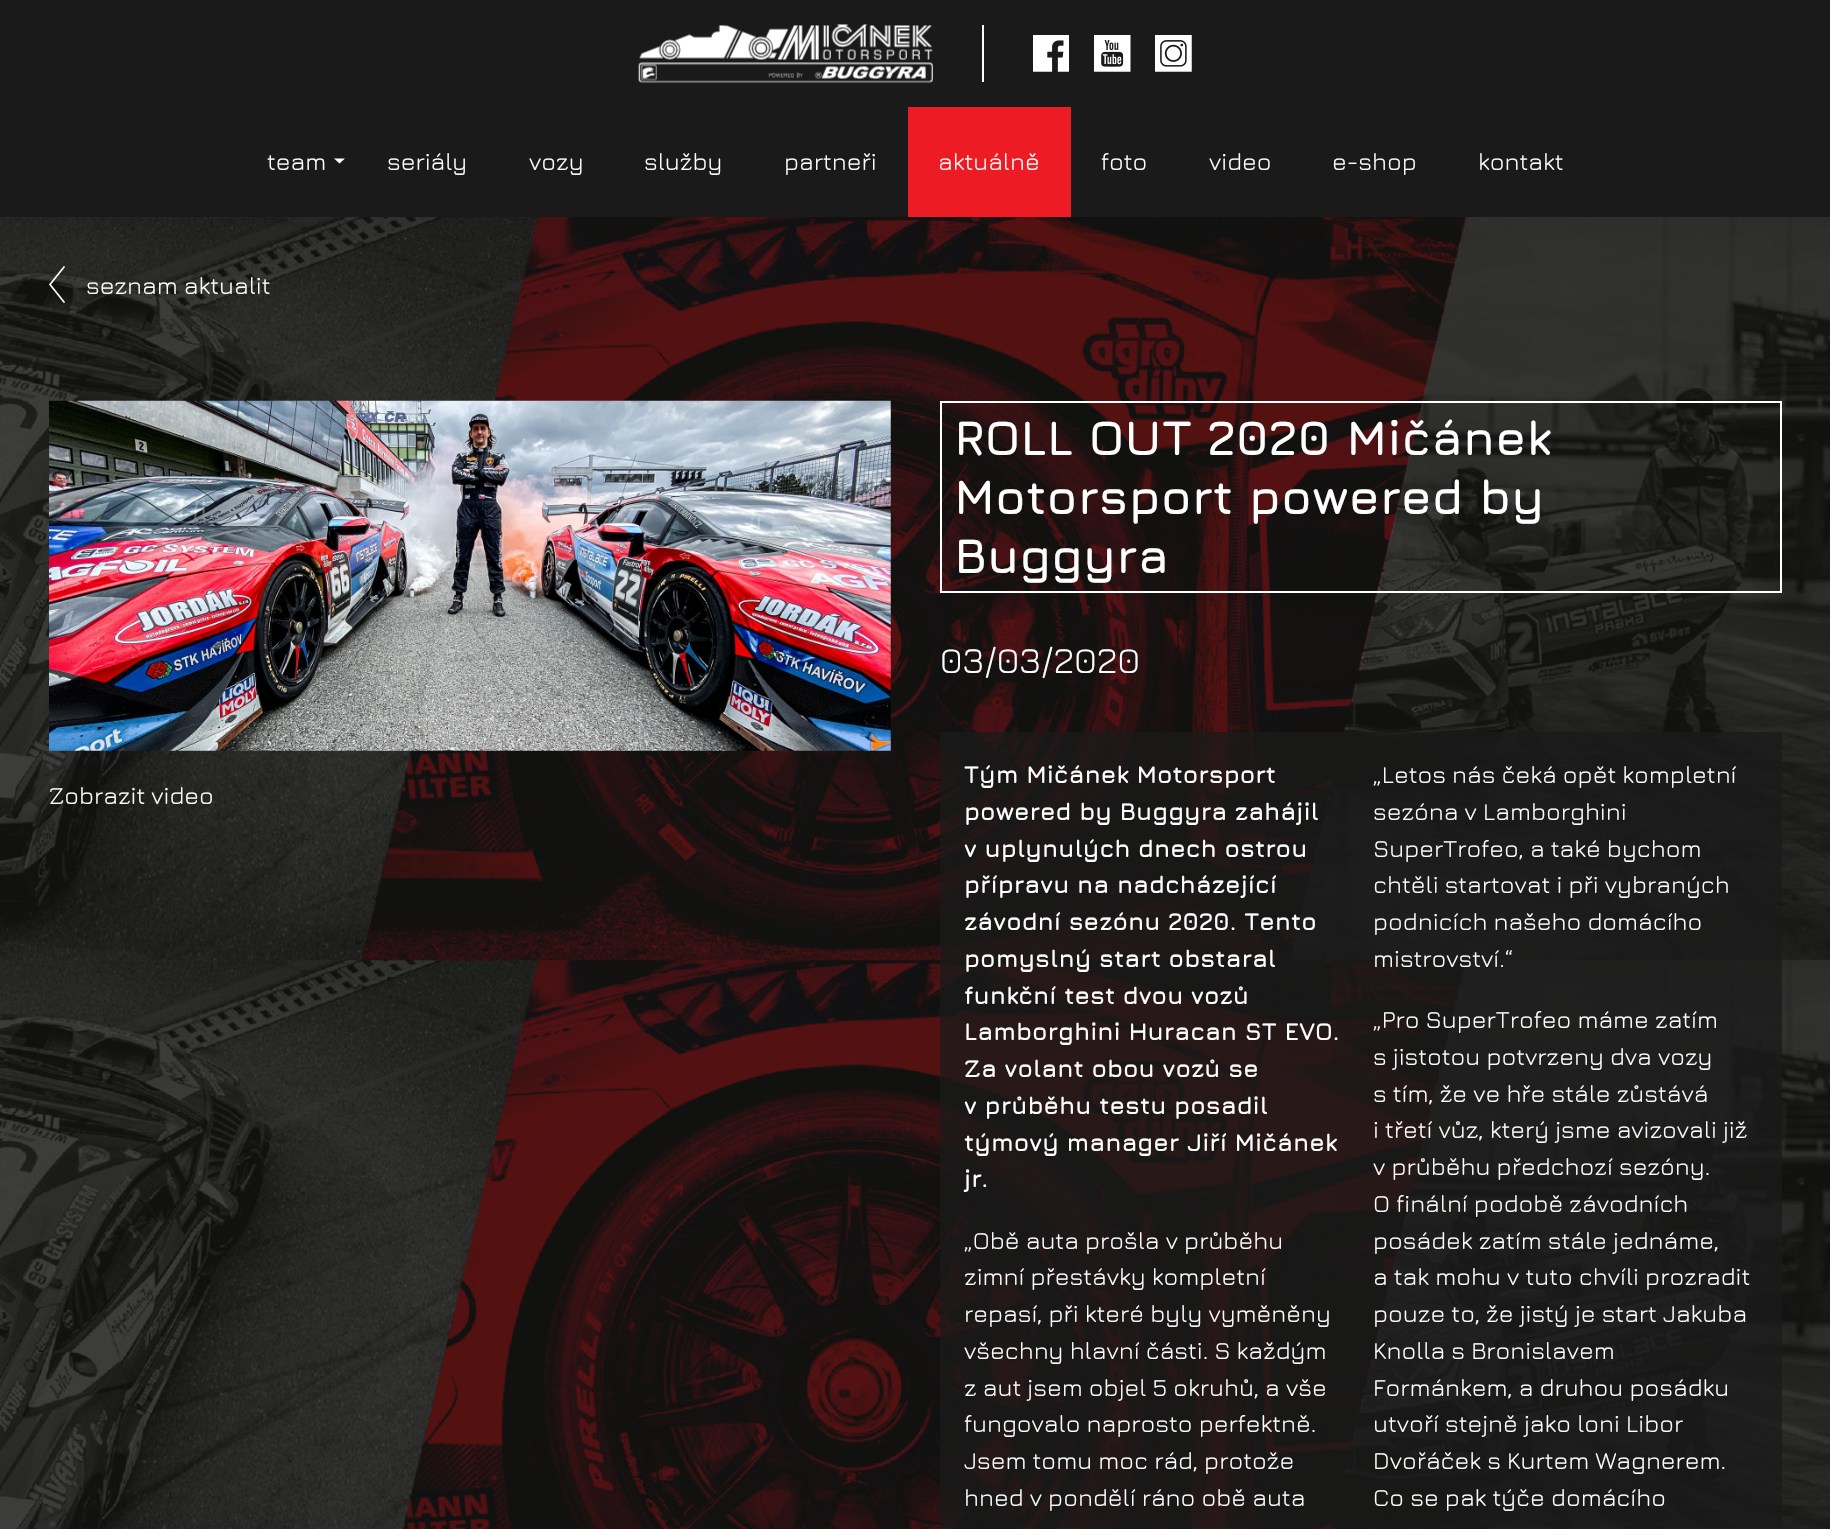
#include "include/core/SkBlurTypes.h"
#include "include/core/SkCanvas.h"
#include "include/core/SkData.h"
#include "include/core/SkFont.h"
#include "include/core/SkFontMgr.h"
#include "include/core/SkImage.h"
#include "include/core/SkMaskFilter.h"
#include "include/core/SkPaint.h"
#include "include/core/SkPathBuilder.h"
#include "include/core/SkTextBlob.h"
#include "include/effects/SkDashPathEffect.h"
#include "include/effects/SkGradientShader.h"
#include "include/utils/SkParsePath.h"

extern sk_sp<SkFontMgr> fontMgr;

void draw(SkCanvas* canvas) {
    SkPaint p;
    p.setAntiAlias(true);
    auto font = [&](const char* family, int weight, float size, bool italic = false) {
        SkFontStyle style(weight, SkFontStyle::kNormal_Width,
            italic ? SkFontStyle::kItalic_Slant : SkFontStyle::kUpright_Slant);
        SkFont result(fontMgr->matchFamilyStyle(family, style), size);
        result.setSubpixel(true);
        return result;
    };
    auto drawPhoto = [&](const char* path, float l, float t, float r, float b) {
        auto image = SkImages::DeferredFromEncodedData(SkData::MakeFromFileName(path));
        canvas->drawImageRect(image, SkRect::MakeLTRB(l, t, r, b), SkSamplingOptions());
    };
    canvas->clear(0xFFFFFFFF);
    p.setColor(0xFF1A1A1A);
    canvas->drawRect(SkRect::MakeLTRB(0, 0, 1830, 217), p);
    p.setColor(0xFFFFFFFF);
    canvas->drawRect(SkRect::MakeLTRB(982, 25, 984, 82), p);
    drawPhoto("media/1.png", 638, 24, 933, 83);
    drawPhoto("media/2.png", 1033, 35, 1069, 72);
    drawPhoto("media/3.png", 1094, 35, 1131, 72);
    drawPhoto("media/4.png", 1155, 35, 1192, 72);
    auto font1 = font("Jura", 400, 24.5f);
    canvas->drawString("team", 267, 170, font1, p);
    canvas->drawPath(SkPathBuilder().moveTo(334, 158.5f).lineTo(345, 158.5f).lineTo(339.5f, 163.5f).close().detach(), p);
    {
        const struct { const char* s; float x, y; } items[] = {
            {"seriály", 387, 170},
            {"vozy", 529, 170},
            {"služby", 644, 170},
            {"partneři", 784, 170},
        };
        for (auto [s, x, y] : items) {
            canvas->drawString(s, x, y, font1, p);
        }
    }
    p.setColor(0xFFED1B24);
    canvas->drawRect(SkRect::MakeLTRB(908, 107, 1071, 217), p);
    p.setColor(0xFFFFFFFF);
    {
        const struct { const char* s; float x, y; } items[] = {
            {"aktuálně", 938, 170},
            {"foto", 1101, 170},
            {"video", 1209, 170},
            {"e-shop", 1332, 170},
            {"kontakt", 1478, 170},
        };
        for (auto [s, x, y] : items) {
            canvas->drawString(s, x, y, font1, p);
        }
    }
    drawPhoto("media/5.png", 0, 217, 1830, 1529);
    p.setStyle(SkPaint::kStroke_Style);
    p.setStrokeWidth(1.7f);
    p.setStrokeCap(SkPaint::kRound_Cap);
    canvas->drawPath(SkPathBuilder().moveTo(64, 267).lineTo(50, 284.5f).lineTo(64, 302).detach(), p);
    p.setStyle(SkPaint::kFill_Style);
    canvas->drawString("seznam aktualit", 86, 294, font1, p);
    drawPhoto("media/6.png", 49, 400, 891, 751);
    canvas->drawString("Zobrazit video", 49, 804, font1, p);
    p.setStyle(SkPaint::kStroke_Style);
    p.setStrokeWidth(2);
    p.setStrokeCap(SkPaint::kButt_Cap);
    canvas->drawRect(SkRect::MakeLTRB(941, 402, 1781, 592), p);
    auto font2 = font("Jura", 700, 49);
    p.setStyle(SkPaint::kFill_Style);
    {
        const struct { const char* s; float x, y; } items[] = {
            {"ROLL OUT 2020 Mičánek", 954, 455},
            {"Motorsport powered by", 954, 514},
            {"Buggyra", 954, 573},
        };
        for (auto [s, x, y] : items) {
            canvas->drawString(s, x, y, font2, p);
        }
    }
    auto font3 = font("Jura", 400, 36.75f);
    canvas->drawString("03/03/2020", 940, 673, font3, p);
    p.setColor(0xBF1A1A1A);
    canvas->drawRect(SkRect::MakeLTRB(940, 732, 1782, 1529), p);
    auto font4 = font("Jura", 700, 24.5f);
    p.setColor(0xFFFFFFFF);
    {
        const struct { const char* s; float x, y; } items[] = {
            {"Tým Mičánek Motorsport", 964, 783},
            {"powered by Buggyra zahájil", 964, 820},
            {"v uplynulých dnech ostrou", 964, 857},
            {"přípravu na nadcházející", 964, 893},
            {"závodní sezónu 2020. Tento", 964, 930},
            {"pomyslný start obstaral", 964, 967},
            {"funkční test dvou vozů", 964, 1004},
            {"Lamborghini Huracan ST EVO.", 964, 1040},
            {"Za volant obou vozů se", 964, 1077},
            {"v průběhu testu posadil", 964, 1114},
            {"týmový manager Jiří Mičánek", 964, 1151},
            {"jr.", 964, 1187},
        };
        for (auto [s, x, y] : items) {
            canvas->drawString(s, x, y, font4, p);
        }
    }
    {
        const struct { const char* s; float x, y; } items[] = {
            {"„Letos nás čeká opět kompletní", 1373, 783},
            {"sezóna v Lamborghini", 1373, 820},
            {"SuperTrofeo, a také bychom", 1373, 857},
            {"chtěli startovat i při vybraných", 1373, 893},
            {"podnicích našeho domácího", 1373, 930},
            {"mistrovství.“", 1373, 967},
            {"„Obě auta prošla v průběhu", 964, 1249},
            {"zimní přestávky kompletní", 964, 1285},
            {"repasí, při které byly vyměněny", 964, 1322},
            {"všechny hlavní části. S každým", 964, 1359},
            {"z aut jsem objel 5 okruhů, a vše", 964, 1396},
            {"fungovalo naprosto perfektně.", 964, 1432},
            {"Jsem tomu moc rád, protože", 964, 1469},
            {"hned v pondělí ráno obě auta", 964, 1506},
            {"„Pro SuperTrofeo máme zatím", 1373, 1028},
            {"s jistotou potvrzeny dva vozy", 1373, 1065},
            {"s tím, že ve hře stále zůstává", 1373, 1102},
            {"i třetí vůz, který jsme avizovali již", 1373, 1138},
            {"v průběhu předchozí sezóny.", 1373, 1175},
            {"O finální podobě závodních", 1373, 1212},
            {"posádek zatím stále jednáme,", 1373, 1249},
            {"a tak mohu v tuto chvíli prozradit", 1373, 1285},
            {"pouze to, že jistý je start Jakuba", 1373, 1322},
            {"Knolla s Bronislavem", 1373, 1359},
            {"Formánkem, a druhou posádku", 1373, 1396},
            {"utvoří stejně jako loni Libor", 1373, 1432},
            {"Dvořáček s Kurtem Wagnerem.", 1373, 1469},
            {"Co se pak týče domácího", 1373, 1506},
        };
        for (auto [s, x, y] : items) {
            canvas->drawString(s, x, y, font1, p);
        }
    }
}
